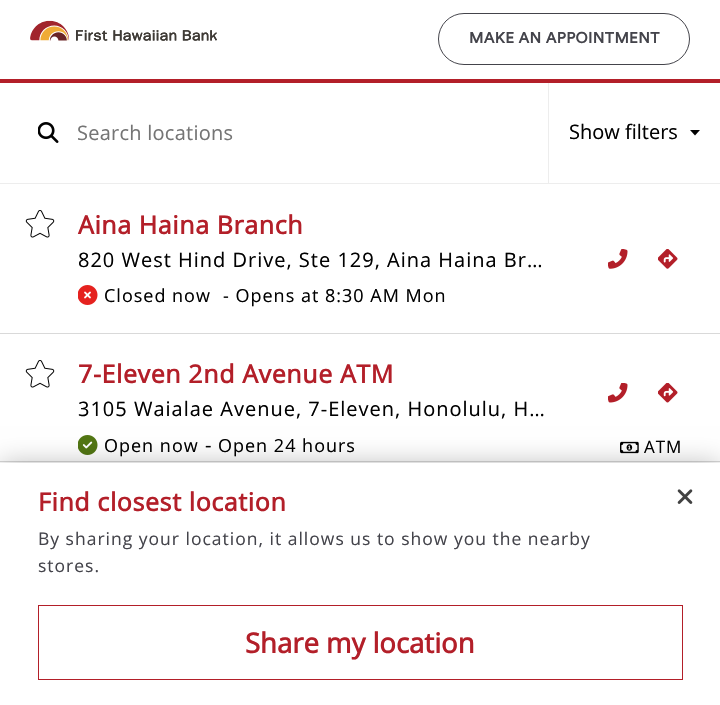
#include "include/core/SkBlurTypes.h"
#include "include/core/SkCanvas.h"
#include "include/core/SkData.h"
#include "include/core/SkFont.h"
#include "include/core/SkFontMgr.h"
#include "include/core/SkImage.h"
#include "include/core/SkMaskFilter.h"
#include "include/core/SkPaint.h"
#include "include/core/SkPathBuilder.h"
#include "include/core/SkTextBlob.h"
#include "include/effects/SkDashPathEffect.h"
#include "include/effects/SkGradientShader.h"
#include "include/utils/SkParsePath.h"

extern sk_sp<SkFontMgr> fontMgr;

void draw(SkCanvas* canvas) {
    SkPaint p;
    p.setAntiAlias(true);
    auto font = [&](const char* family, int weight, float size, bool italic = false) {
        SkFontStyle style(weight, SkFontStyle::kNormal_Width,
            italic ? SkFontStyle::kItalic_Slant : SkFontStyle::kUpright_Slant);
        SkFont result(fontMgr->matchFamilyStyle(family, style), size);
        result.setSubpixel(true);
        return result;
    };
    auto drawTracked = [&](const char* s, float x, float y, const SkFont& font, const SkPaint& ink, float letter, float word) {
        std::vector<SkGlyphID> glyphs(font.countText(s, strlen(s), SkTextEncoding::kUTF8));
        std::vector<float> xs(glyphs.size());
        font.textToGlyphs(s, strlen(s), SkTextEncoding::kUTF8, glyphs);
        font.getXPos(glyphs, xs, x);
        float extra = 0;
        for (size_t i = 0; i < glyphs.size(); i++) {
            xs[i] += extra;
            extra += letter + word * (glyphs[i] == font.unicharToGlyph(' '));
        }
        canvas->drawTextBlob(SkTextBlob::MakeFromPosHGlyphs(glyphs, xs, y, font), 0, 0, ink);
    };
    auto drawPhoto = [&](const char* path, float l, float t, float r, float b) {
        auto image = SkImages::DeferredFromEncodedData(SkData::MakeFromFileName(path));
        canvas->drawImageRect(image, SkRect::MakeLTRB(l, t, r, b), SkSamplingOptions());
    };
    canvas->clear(0xFFFFFFFF);
    p.setColor(0xFFB31F29);
    canvas->drawRect(SkRect::MakeLTRB(0, 79, 720, 83), p);
    drawPhoto("media/1.png", 30, 20, 217, 41);
    p.setStyle(SkPaint::kStroke_Style);
    p.setStrokeWidth(1);
    p.setColor(0xFF44444B);
    canvas->drawRoundRect(SkRect::MakeLTRB(438.5f, 13.5f, 689.5f, 64.5f), 25.5f, 25.5f, p);
    auto font1 = font("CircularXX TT", 700, 15);
    p.setStyle(SkPaint::kFill_Style);
    drawTracked("MAKE AN APPOINTMENT", 469, 43, font1, p, 0.4f, 0);
    p.setColor(0xFFEDEDED);
    canvas->drawRect(SkRect::MakeLTRB(0, 183, 720, 184), p);
    drawPhoto("media/2.png", 38, 122, 59, 143);
    auto font2 = font("Open Sans", 400, 20);
    p.setColor(0xFF757575);
    drawTracked("Search locations", 77, 140, font2, p, 0.25f, 0);
    p.setColor(0xFFEDEDED);
    canvas->drawRect(SkRect::MakeLTRB(548, 83, 549, 183), p);
    p.setColor(0xFF010101);
    canvas->drawString("Show filters", 569, 139, font2, p);
    canvas->drawPath(SkPathBuilder().moveTo(695, 135.5f).lineTo(690, 130).lineTo(700, 130).close().detach(), p);
    p.setColor(0xFFD9D9D9);
    canvas->drawRect(SkRect::MakeLTRB(0, 333, 720, 334), p);
    drawPhoto("media/3.png", 25, 210, 55, 238);
    auto font3 = font("Open Sans", 700, 25);
    p.setColor(0xFFB31F29);
    drawTracked("Aina Haina Branch", 78, 234, font3, p, 0.6f, 0);
    p.setColor(0xFF010101);
    drawTracked("820 West Hind Drive, Ste 129, Aina Haina Br…", 78, 267, font2, p, 1, 0);
    drawPhoto("media/4.png", 78, 285, 98, 305);
    auto font4 = font("Open Sans", 400, 18);
    drawTracked("Closed now", 104, 302, font4, p, 1, 0);
    drawTracked("- Opens at 8:30 AM Mon", 223, 302, font4, p, 1, 0);
    drawPhoto("media/5.png", 608, 249, 628, 269);
    drawPhoto("media/6.png", 658, 249, 678, 269);
    drawPhoto("media/3.png", 25, 360, 55, 388);
    p.setColor(0xFFB31F29);
    drawTracked("7-Eleven 2nd Avenue ATM", 78, 383, font3, p, 0.6f, 0);
    p.setColor(0xFF010101);
    drawTracked("3105 Waialae Avenue, 7-Eleven, Honolulu, H…", 78, 416, font2, p, 1, 0);
    drawPhoto("media/7.png", 78, 435, 98, 455);
    drawTracked("Open now", 104, 452, font4, p, 1, 0);
    drawTracked("-", 205, 452, font2, p, 1, 0);
    drawTracked("Open 24 hours", 218, 452, font4, p, 1, 0);
    drawPhoto("media/8.png", 608, 383, 628, 403);
    drawPhoto("media/9.png", 658, 383, 678, 403);
    drawPhoto("media/10.png", 620, 441, 639, 454);
    auto font5 = font("Open Sans", 400, 17);
    drawTracked("ATM", 644, 453, font5, p, 1, 0);
    p.setStyle(SkPaint::kStroke_Style);
    p.setColor(0xFFD9D9D9);
    canvas->drawRect(SkRect::MakeLTRB(-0.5f, 461.5f, 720.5f, 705.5f), p);
    p.setStyle(SkPaint::kFill_Style);
    p.setColor(0x40000000);
    p.setMaskFilter(SkMaskFilter::MakeBlur(kNormal_SkBlurStyle, 12.5f));
    canvas->drawRect(SkRect::MakeLTRB(0, 463, 720, 705), p);
    p.setMaskFilter(nullptr);
    p.setColor(0xFFFFFFFF);
    canvas->drawRect(SkRect::MakeLTRB(0, 463, 720, 705), p);
    p.setColor(0xFFB31F29);
    drawTracked("Find closest location", 38, 511, font3, p, 0.6f, 0);
    auto font6 = font("Open Sans", 400, 17.5f);
    p.setColor(0xFF44444B);
    drawTracked("By sharing your location, it allows us to show you the nearby", 38, 545, font6, p, 1, 0);
    drawTracked("stores.", 38, 572, font6, p, 1, 0);
    drawPhoto("media/11.png", 677, 489, 693, 504);
    p.setStyle(SkPaint::kStroke_Style);
    p.setColor(0xFFB31F29);
    canvas->drawRect(SkRect::MakeLTRB(38.5f, 605.5f, 682.5f, 679.5f), p);
    auto font7 = font("Open Sans", 700, 27.5f);
    p.setStyle(SkPaint::kFill_Style);
    canvas->drawString("Share my location", 245, 653, font7, p);
}
